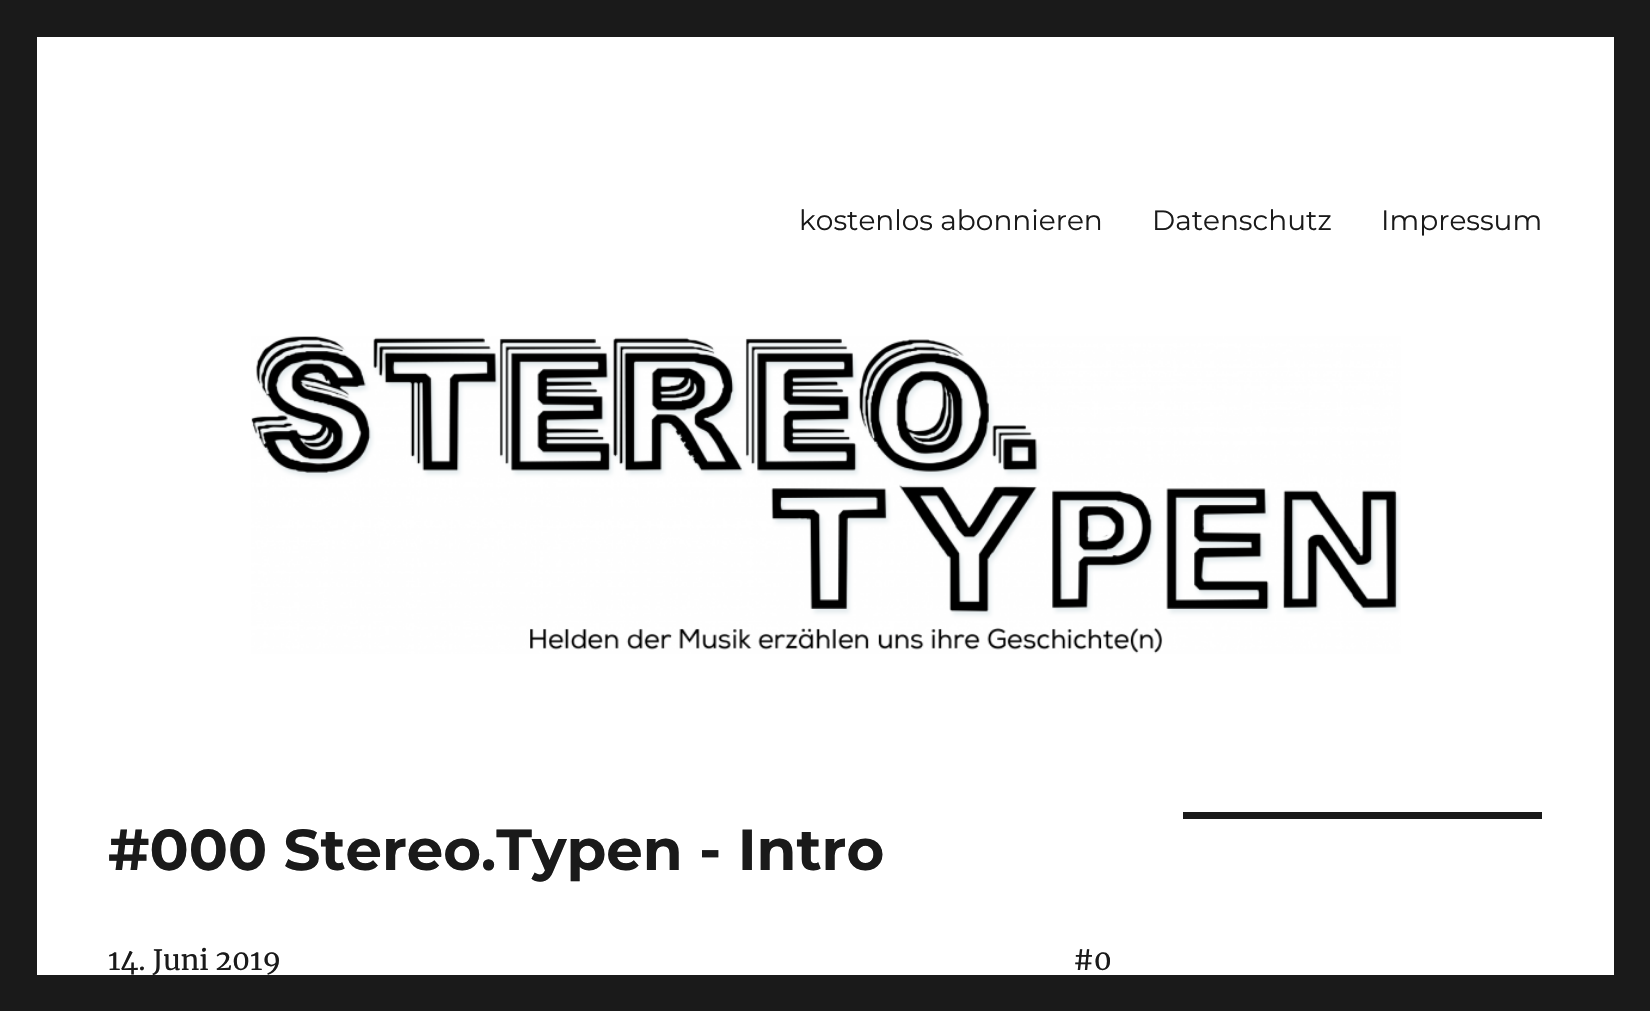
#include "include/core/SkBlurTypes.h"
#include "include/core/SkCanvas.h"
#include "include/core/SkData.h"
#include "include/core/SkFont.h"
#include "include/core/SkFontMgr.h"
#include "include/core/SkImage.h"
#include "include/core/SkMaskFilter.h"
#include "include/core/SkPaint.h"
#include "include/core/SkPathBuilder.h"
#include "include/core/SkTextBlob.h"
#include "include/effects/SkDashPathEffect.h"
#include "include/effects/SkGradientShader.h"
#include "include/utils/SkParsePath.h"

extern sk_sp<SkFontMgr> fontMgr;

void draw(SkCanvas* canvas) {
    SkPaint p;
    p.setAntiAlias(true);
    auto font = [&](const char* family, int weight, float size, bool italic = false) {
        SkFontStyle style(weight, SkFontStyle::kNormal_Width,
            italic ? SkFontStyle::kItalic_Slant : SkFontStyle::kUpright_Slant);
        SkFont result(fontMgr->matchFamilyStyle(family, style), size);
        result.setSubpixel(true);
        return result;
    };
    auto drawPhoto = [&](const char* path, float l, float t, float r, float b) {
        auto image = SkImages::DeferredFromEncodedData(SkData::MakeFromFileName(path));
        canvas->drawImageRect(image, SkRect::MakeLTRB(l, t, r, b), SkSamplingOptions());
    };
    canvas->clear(0xFF1A1A1A);
    p.setColor(0xFFFFFFFF);
    canvas->drawRect(SkRect::MakeLTRB(37, 37, 1614, 975), p);
    auto font1 = font("Montserrat", 100, 28);
    p.setColor(0xFF1A1A1A);
    {
        const struct { const char* s; float x, y; } items[] = {
            {"kostenlos abonnieren", 799, 230},
            {"Datenschutz", 1152, 230},
            {"Impressum", 1381, 230},
        };
        for (auto [s, x, y] : items) {
            canvas->drawString(s, x, y, font1, p);
        }
    }
    drawPhoto("media/1.png", 251, 336, 1401, 654);
    canvas->drawRect(SkRect::MakeLTRB(1183, 812, 1542, 819), p);
    auto font2 = font("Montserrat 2", 100, 57.75f);
    canvas->drawString("#000 Stereo.Typen - Intro", 108, 870, font2, p);
    auto font3 = font("Merriweather", 400, 28);
    canvas->drawString("14. Juni 2019", 108, 970, font3, p);
    canvas->drawString("#0", 1073, 970, font3, p);
}
